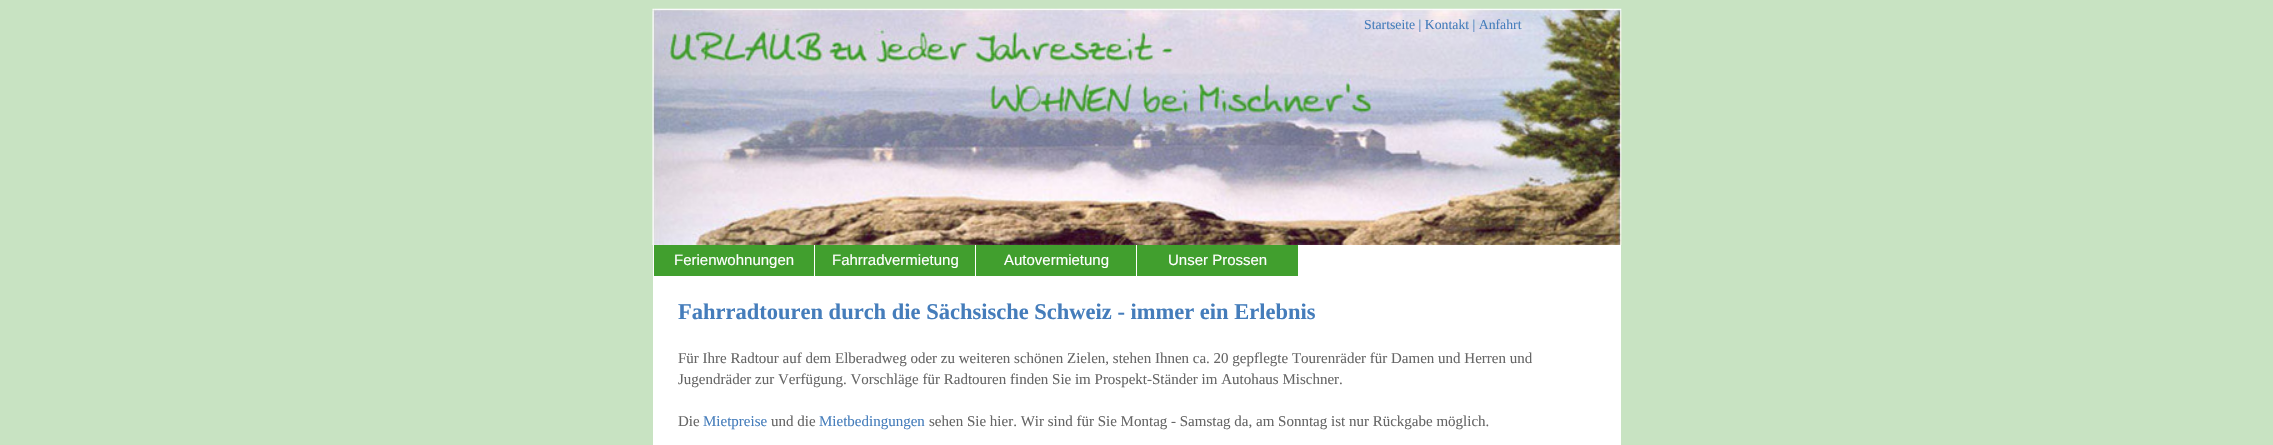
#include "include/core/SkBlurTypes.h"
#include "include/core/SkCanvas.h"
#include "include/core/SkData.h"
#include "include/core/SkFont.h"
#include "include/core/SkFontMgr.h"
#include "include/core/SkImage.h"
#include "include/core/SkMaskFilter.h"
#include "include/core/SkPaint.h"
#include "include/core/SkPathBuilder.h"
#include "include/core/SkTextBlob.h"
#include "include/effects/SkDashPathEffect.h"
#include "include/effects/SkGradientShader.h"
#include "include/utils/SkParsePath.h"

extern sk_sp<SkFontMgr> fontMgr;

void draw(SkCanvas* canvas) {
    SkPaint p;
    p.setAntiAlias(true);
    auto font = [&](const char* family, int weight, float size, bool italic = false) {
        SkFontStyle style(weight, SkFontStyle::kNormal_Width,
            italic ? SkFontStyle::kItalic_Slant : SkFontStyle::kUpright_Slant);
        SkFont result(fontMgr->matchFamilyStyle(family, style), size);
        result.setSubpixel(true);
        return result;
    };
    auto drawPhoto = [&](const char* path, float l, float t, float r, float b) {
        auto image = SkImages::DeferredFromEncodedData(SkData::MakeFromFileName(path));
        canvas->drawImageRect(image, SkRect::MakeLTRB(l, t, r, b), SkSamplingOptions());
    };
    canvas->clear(0xFFC8E3C2);
    drawPhoto("media/1.png", 652, 8, 1622, 245);
    auto font1 = font("Liberation Serif", 400, 13.75f);
    p.setColor(0xFF457DBB);
    canvas->drawString("Startseite | Kontakt | Anfahrt", 1364, 29, font1, p);
    p.setColor(0xFFFFFFFF);
    canvas->drawRect(SkRect::MakeLTRB(653, 245, 1621, 445), p);
    p.setColor(0xFF419F2E);
    canvas->drawRect(SkRect::MakeLTRB(654, 245, 814, 276), p);
    auto font2 = font("Liberation Sans", 400, 15);
    p.setColor(0xFFFFFFFF);
    canvas->drawString("Ferienwohnungen", 674, 265, font2, p);
    p.setColor(0xFF419F2E);
    canvas->drawRect(SkRect::MakeLTRB(815, 245, 975, 276), p);
    p.setColor(0xFFFFFFFF);
    canvas->drawString("Fahrradvermietung", 832, 265, font2, p);
    p.setColor(0xFF419F2E);
    canvas->drawRect(SkRect::MakeLTRB(976, 245, 1298, 276), p);
    p.setColor(0xFFFFFFFF);
    canvas->drawRect(SkRect::MakeLTRB(1136, 245, 1137, 276), p);
    canvas->drawString("Autovermietung", 1004, 265, font2, p);
    canvas->drawString("Unser Prossen", 1168, 265, font2, p);
    auto font3 = font("Liberation Serif", 700, 22.5f);
    p.setColor(0xFF457DBB);
    canvas->drawString("Fahrradtouren durch die Sächsische Schweiz - immer ein Erlebnis", 678, 319, font3, p);
    auto font4 = font("Liberation Serif", 400, 15);
    p.setColor(0xFF666666);
    {
        const struct { const char* s; float x, y; } items[] = {
            {"Für Ihre Radtour auf dem Elberadweg oder zu weiteren schönen Zielen, stehen Ihnen ca. 20 gepflegte Tourenräder für Damen und Herren und", 678, 363},
            {"Jugendräder zur Verfügung. Vorschläge für Radtouren finden Sie im Prospekt-Ständer im Autohaus Mischner.", 678, 384},
            {"Die", 678, 426},
        };
        for (auto [s, x, y] : items) {
            canvas->drawString(s, x, y, font4, p);
        }
    }
    p.setColor(0xFF457DBB);
    canvas->drawString("Mietpreise", 703, 426, font4, p);
    p.setColor(0xFF666666);
    canvas->drawString("und die", 771, 426, font4, p);
    p.setColor(0xFF457DBB);
    canvas->drawString("Mietbedingungen", 819, 426, font4, p);
    p.setColor(0xFF666666);
    canvas->drawString("sehen Sie hier. Wir sind für Sie Montag - Samstag da, am Sonntag ist nur Rückgabe möglich.", 929, 426, font4, p);
}
